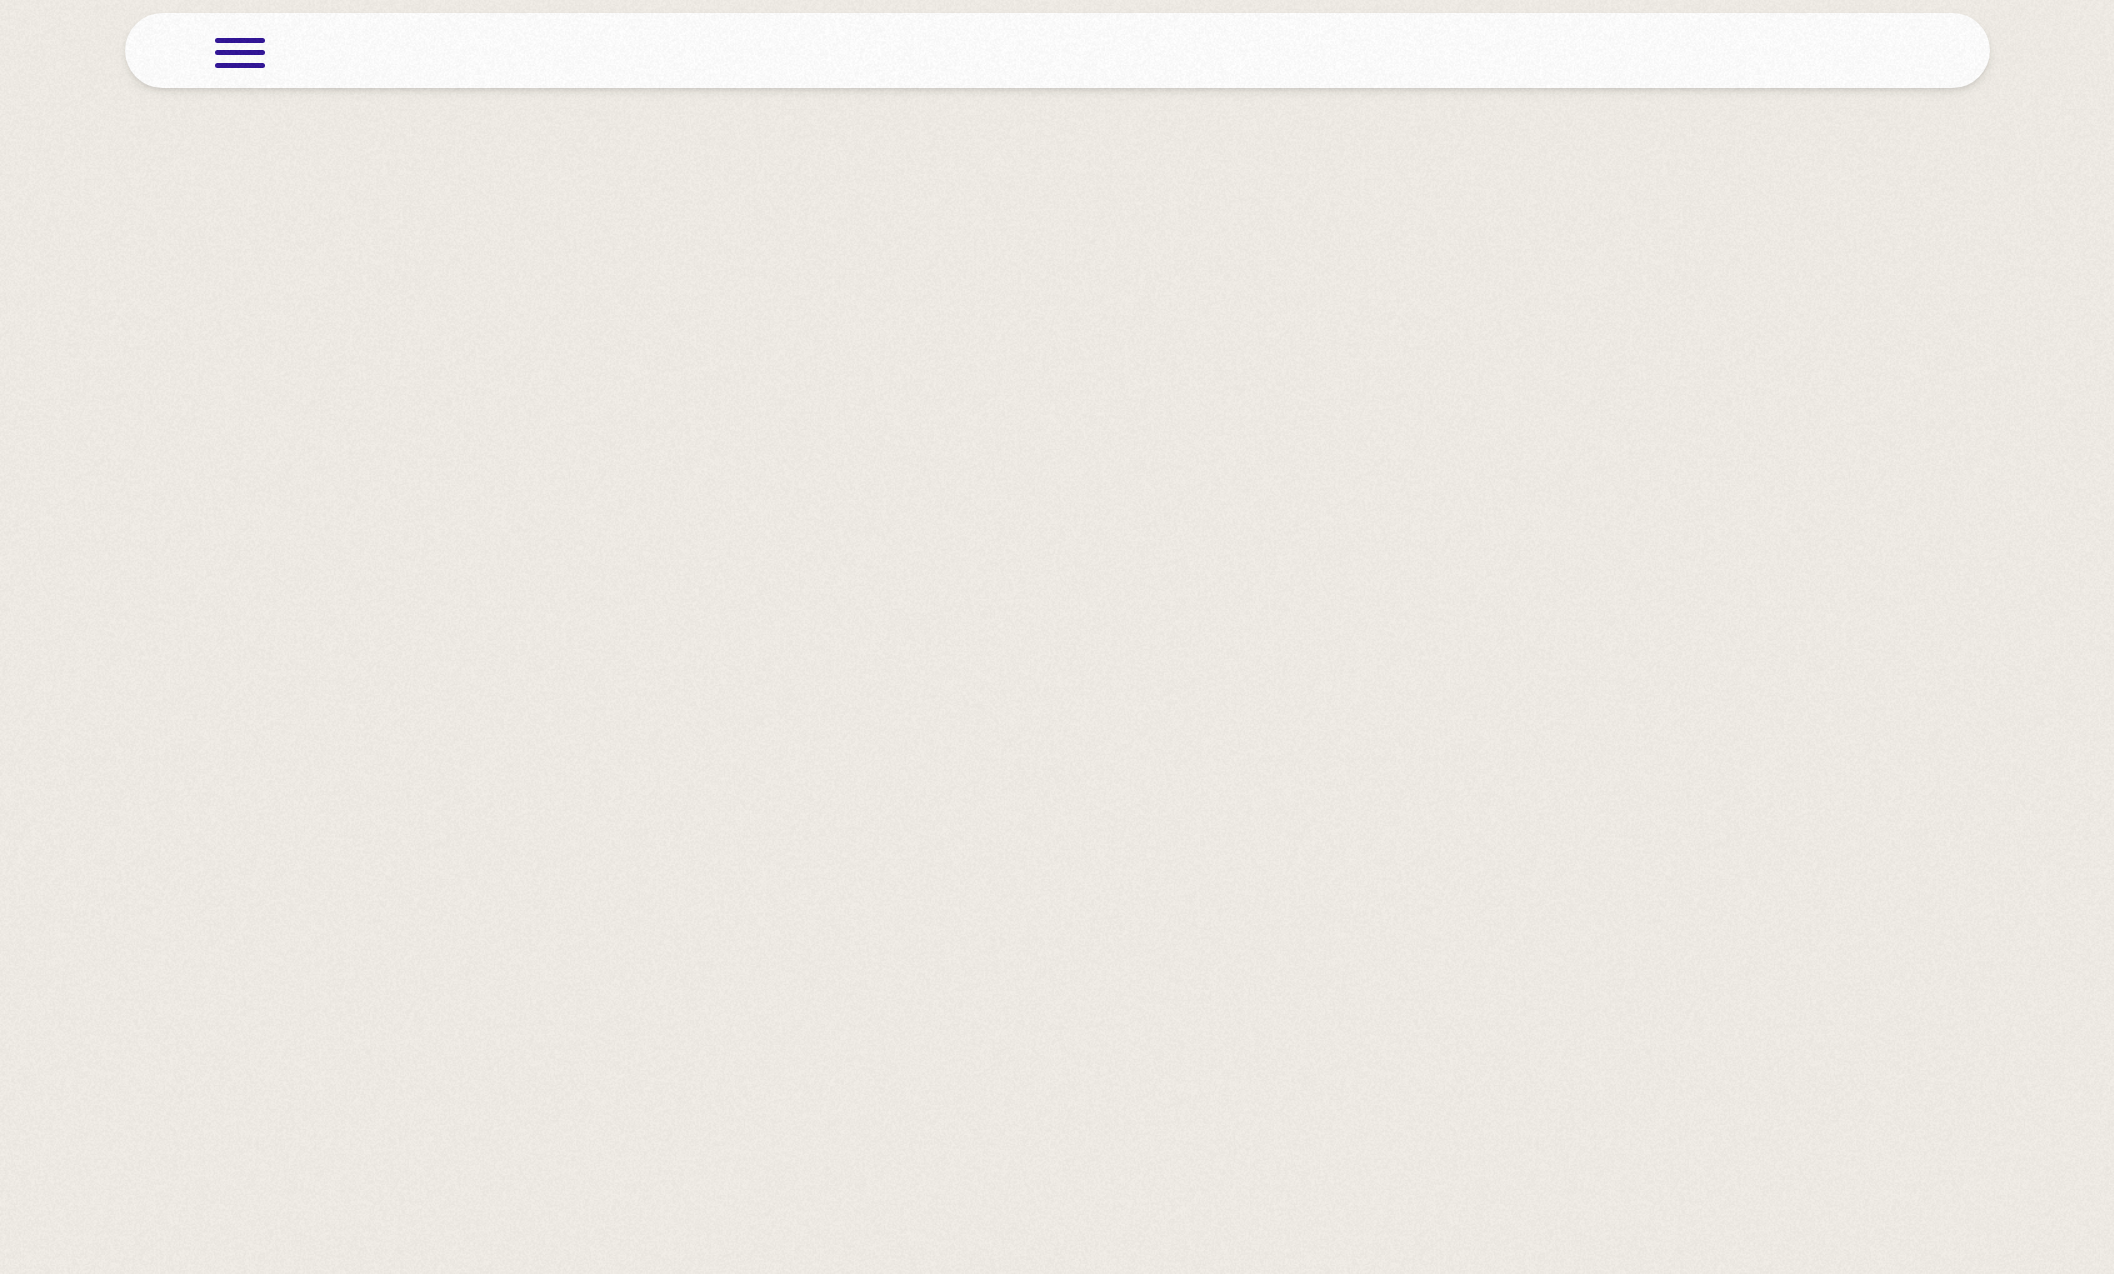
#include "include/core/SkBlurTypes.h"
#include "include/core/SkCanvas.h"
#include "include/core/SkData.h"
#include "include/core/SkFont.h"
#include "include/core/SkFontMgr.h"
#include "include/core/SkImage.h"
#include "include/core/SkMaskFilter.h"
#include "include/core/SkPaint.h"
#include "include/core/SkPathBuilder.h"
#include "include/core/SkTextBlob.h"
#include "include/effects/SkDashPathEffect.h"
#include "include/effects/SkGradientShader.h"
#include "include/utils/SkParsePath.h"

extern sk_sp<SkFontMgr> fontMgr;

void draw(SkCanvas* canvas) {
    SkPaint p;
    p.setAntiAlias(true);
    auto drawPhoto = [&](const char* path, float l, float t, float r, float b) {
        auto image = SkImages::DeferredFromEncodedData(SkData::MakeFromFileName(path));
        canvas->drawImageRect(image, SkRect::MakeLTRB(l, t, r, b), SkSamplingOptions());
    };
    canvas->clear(0xFFF2EEE7);
    p.setColor(0x1A000000);
    p.setMaskFilter(SkMaskFilter::MakeBlur(kNormal_SkBlurStyle, 2.5f));
    canvas->drawRoundRect(SkRect::MakeLTRB(128, 18, 1988, 88), 35, 35, p);
    p.setMaskFilter(nullptr);
    p.setMaskFilter(SkMaskFilter::MakeBlur(kNormal_SkBlurStyle, 4));
    canvas->drawRoundRect(SkRect::MakeLTRB(126, 19, 1989, 91), 36, 36, p);
    p.setMaskFilter(nullptr);
    p.setColor(0xFFFFFFFF);
    canvas->drawRoundRect(SkRect::MakeLTRB(125, 13, 1990, 88), 37.5f, 37.5f, p);
    p.setColor(0xFF2E1196);
    canvas->drawRoundRect(SkRect::MakeLTRB(215, 38, 265, 43), 2.5f, 2.5f, p);
    canvas->drawRoundRect(SkRect::MakeLTRB(215, 50, 265, 55), 2.5f, 2.5f, p);
    canvas->drawRoundRect(SkRect::MakeLTRB(215, 63, 265, 68), 2.5f, 2.5f, p);
    drawPhoto("media/1.png", 0, 0, 2114, 1274);
}
